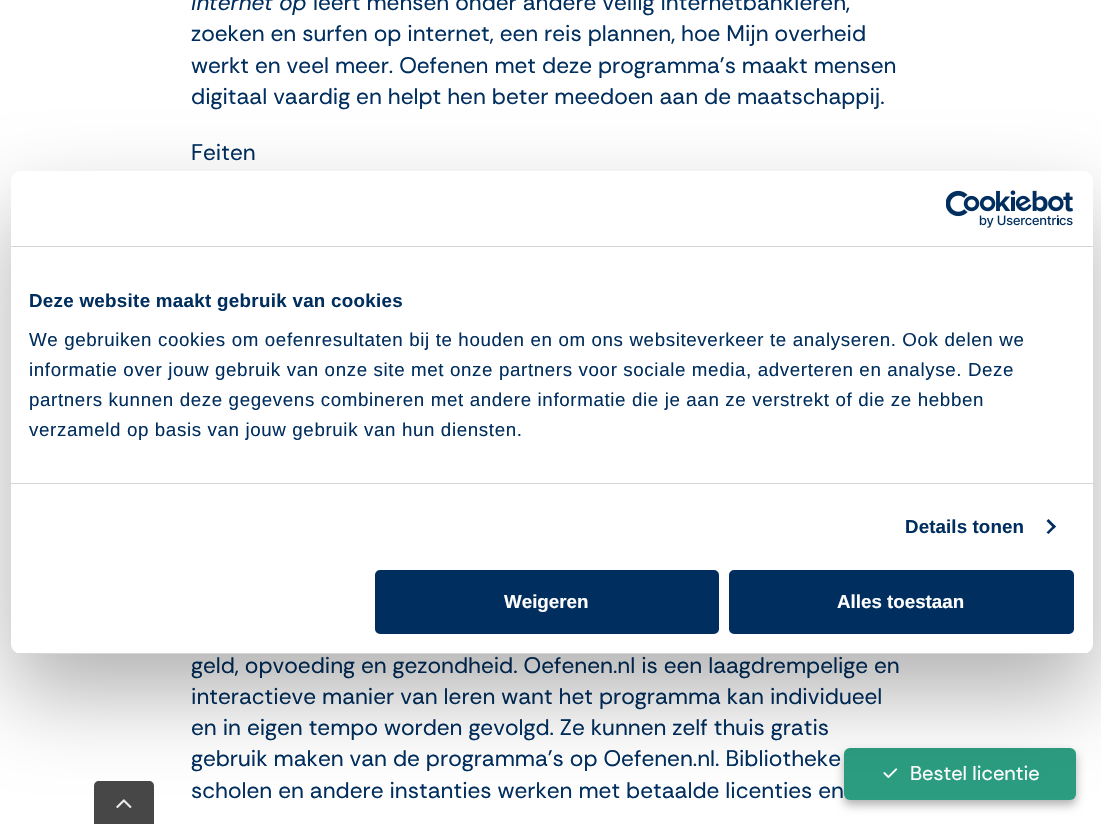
#include "include/core/SkBlurTypes.h"
#include "include/core/SkCanvas.h"
#include "include/core/SkData.h"
#include "include/core/SkFont.h"
#include "include/core/SkFontMgr.h"
#include "include/core/SkImage.h"
#include "include/core/SkMaskFilter.h"
#include "include/core/SkPaint.h"
#include "include/core/SkPathBuilder.h"
#include "include/core/SkTextBlob.h"
#include "include/effects/SkDashPathEffect.h"
#include "include/effects/SkGradientShader.h"
#include "include/utils/SkParsePath.h"

extern sk_sp<SkFontMgr> fontMgr;

void draw(SkCanvas* canvas) {
    SkPaint p;
    p.setAntiAlias(true);
    auto font = [&](const char* family, int weight, float size, bool italic = false) {
        SkFontStyle style(weight, SkFontStyle::kNormal_Width,
            italic ? SkFontStyle::kItalic_Slant : SkFontStyle::kUpright_Slant);
        SkFont result(fontMgr->matchFamilyStyle(family, style), size);
        result.setSubpixel(true);
        return result;
    };
    auto drawTracked = [&](const char* s, float x, float y, const SkFont& font, const SkPaint& ink, float letter, float word) {
        std::vector<SkGlyphID> glyphs(font.countText(s, strlen(s), SkTextEncoding::kUTF8));
        std::vector<float> xs(glyphs.size());
        font.textToGlyphs(s, strlen(s), SkTextEncoding::kUTF8, glyphs);
        font.getXPos(glyphs, xs, x);
        float extra = 0;
        for (size_t i = 0; i < glyphs.size(); i++) {
            xs[i] += extra;
            extra += letter + word * (glyphs[i] == font.unicharToGlyph(' '));
        }
        canvas->drawTextBlob(SkTextBlob::MakeFromPosHGlyphs(glyphs, xs, y, font), 0, 0, ink);
    };
    auto drawPhoto = [&](const char* path, float l, float t, float r, float b) {
        auto image = SkImages::DeferredFromEncodedData(SkData::MakeFromFileName(path));
        canvas->drawImageRect(image, SkRect::MakeLTRB(l, t, r, b), SkSamplingOptions());
    };
    canvas->clear(0xFFFFFFFF);
    auto font1 = font("Rethink Sans", 400, 22.5f, true);
    p.setColor(0xFF002E5E);
    canvas->drawString("internet op", 191, 10, font1, p);
    auto font2 = font("Rethink Sans", 400, 22.5f);
    {
        const struct { const char* s; float x, y; } items[] = {
            {"leert mensen onder andere veilig internetbankieren,", 313, 10},
            {"zoeken en surfen op internet, een reis plannen, hoe Mijn overheid", 191, 41},
            {"werkt en veel meer. Oefenen met deze programma’s maakt mensen", 191, 73},
            {"digitaal vaardig en helpt hen beter meedoen aan de maatschappij.", 191, 104},
            {"Feiten", 191, 160},
            {"geld, opvoeding en gezondheid. Oefenen.nl is een laagdrempelige en", 191, 673},
            {"interactieve manier van leren want het programma kan individueel", 191, 704},
            {"en in eigen tempo worden gevolgd. Ze kunnen zelf thuis gratis", 191, 735},
            {"gebruik maken van de programma’s op Oefenen.nl. Bibliotheke", 191, 766},
            {"scholen en andere instanties werken met betaalde licenties en", 191, 798},
        };
        for (auto [s, x, y] : items) {
            canvas->drawString(s, x, y, font2, p);
        }
    }
    p.setColor(0x4D000000);
    p.setMaskFilter(SkMaskFilter::MakeBlur(kNormal_SkBlurStyle, 5));
    canvas->drawRoundRect(SkRect::MakeLTRB(844, 753, 1076, 805), 6, 6, p);
    p.setMaskFilter(nullptr);
    p.setColor(0xFF2C9D81);
    canvas->drawRoundRect(SkRect::MakeLTRB(844, 748, 1076, 800), 6, 6, p);
    drawPhoto("media/2.png", 883, 768, 898, 778);
    p.setColor(0xFF474747);
    canvas->drawPath(SkPathBuilder().moveTo(99, 781).lineTo(149, 781).cubicTo(152, 781, 154, 783, 154, 786).lineTo(154, 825).lineTo(94, 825).lineTo(94, 786).cubicTo(94, 783, 96, 781, 99, 781).close().detach(), p);
    drawPhoto("media/3.png", 116, 799, 132, 809);
    p.setColor(0x4D000000);
    p.setMaskFilter(SkMaskFilter::MakeBlur(kNormal_SkBlurStyle, 42.5f));
    canvas->drawRoundRect(SkRect::MakeLTRB(11, 211, 1093, 694), 10, 10, p);
    p.setMaskFilter(nullptr);
    p.setColor(0xFFFFFFFF);
    canvas->drawRoundRect(SkRect::MakeLTRB(11, 171, 1093, 654), 10, 10, p);
    p.setColor(0xFFD6D6D6);
    canvas->drawRect(SkRect::MakeLTRB(11, 246, 1093, 247), p);
    drawPhoto("media/1.png", 946, 190, 1073, 228);
    canvas->drawRect(SkRect::MakeLTRB(11, 483, 1093, 484), p);
    auto font3 = font("Liberation Sans", 700, 18.75f);
    p.setColor(0xFF002E5E);
    drawTracked("Deze website maakt gebruik van cookies", 29, 307, font3, p, 0.3f, 0);
    auto font4 = font("Liberation Sans", 400, 18.75f);
    {
        const struct { const char* s; float x, y; } items[] = {
            {"We gebruiken cookies om oefenresultaten bij te houden en om ons websiteverkeer te analyseren. Ook delen we", 29, 346},
            {"informatie over jouw gebruik van onze site met onze partners voor sociale media, adverteren en analyse. Deze", 29, 376},
            {"partners kunnen deze gegevens combineren met andere informatie die je aan ze verstrekt of die ze hebben", 29, 406},
            {"verzameld op basis van jouw gebruik van hun diensten.", 29, 436},
        };
        for (auto [s, x, y] : items) {
            drawTracked(s, x, y, font4, p, 0.62f, 0);
        }
    }
    drawTracked("Details tonen", 905, 533, font3, p, 0.1f, 0);
    canvas->drawPath(SkPathBuilder().moveTo(1048.5f, 519).lineTo(1056, 526.5f).lineTo(1054, 528.5f).lineTo(1046.5f, 521).close().detach(), p);
    canvas->drawPath(SkPathBuilder().moveTo(1054, 525).lineTo(1056, 526.5f).lineTo(1048.5f, 534).lineTo(1046.5f, 532.5f).close().detach(), p);
    canvas->save();
    canvas->clipPath(SkPathBuilder().moveTo(21, 171).lineTo(1083, 171).cubicTo(1088.5f, 171, 1093, 175.5f, 1093, 181).lineTo(1093, 644).cubicTo(1093, 649.5f, 1088.5f, 654, 1083, 654).lineTo(21, 654).cubicTo(15.5f, 654, 11, 649.5f, 11, 644).lineTo(11, 181).cubicTo(11, 175.5f, 15.5f, 171, 21, 171).close().detach(), true);
    p.setColor(0xFFD6D6D6);
    canvas->drawRect(SkRect::MakeLTRB(11, 653, 1093, 654), p);
    canvas->restore();
    p.setColor(0xFF002E5E);
    canvas->drawRoundRect(SkRect::MakeLTRB(376.5f, 571.5f, 717.5f, 632.5f), 3.5f, 3.5f, p);
    p.setStyle(SkPaint::kStroke_Style);
    p.setStrokeWidth(3);
    canvas->drawRoundRect(SkRect::MakeLTRB(376.5f, 571.5f, 717.5f, 632.5f), 3.5f, 3.5f, p);
    p.setStyle(SkPaint::kFill_Style);
    p.setColor(0xFFFFFFFF);
    canvas->drawString("Weigeren", 504, 608, font3, p);
    p.setColor(0xFF002E5E);
    canvas->drawRoundRect(SkRect::MakeLTRB(730.5f, 571.5f, 1072.5f, 632.5f), 3.5f, 3.5f, p);
    p.setStyle(SkPaint::kStroke_Style);
    canvas->drawRoundRect(SkRect::MakeLTRB(730.5f, 571.5f, 1072.5f, 632.5f), 3.5f, 3.5f, p);
    p.setStyle(SkPaint::kFill_Style);
    p.setColor(0xFFFFFFFF);
    canvas->drawString("Alles toestaan", 837, 608, font3, p);
    auto font5 = font("Rethink Sans", 400, 20);
    canvas->drawString("Bestel licentie", 910, 780, font5, p);
}
